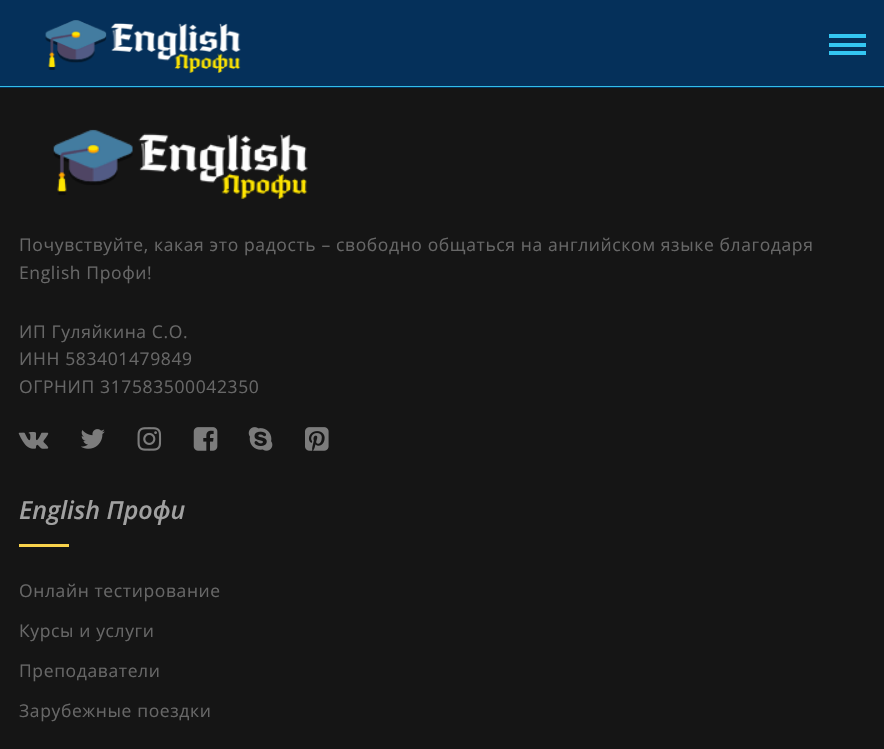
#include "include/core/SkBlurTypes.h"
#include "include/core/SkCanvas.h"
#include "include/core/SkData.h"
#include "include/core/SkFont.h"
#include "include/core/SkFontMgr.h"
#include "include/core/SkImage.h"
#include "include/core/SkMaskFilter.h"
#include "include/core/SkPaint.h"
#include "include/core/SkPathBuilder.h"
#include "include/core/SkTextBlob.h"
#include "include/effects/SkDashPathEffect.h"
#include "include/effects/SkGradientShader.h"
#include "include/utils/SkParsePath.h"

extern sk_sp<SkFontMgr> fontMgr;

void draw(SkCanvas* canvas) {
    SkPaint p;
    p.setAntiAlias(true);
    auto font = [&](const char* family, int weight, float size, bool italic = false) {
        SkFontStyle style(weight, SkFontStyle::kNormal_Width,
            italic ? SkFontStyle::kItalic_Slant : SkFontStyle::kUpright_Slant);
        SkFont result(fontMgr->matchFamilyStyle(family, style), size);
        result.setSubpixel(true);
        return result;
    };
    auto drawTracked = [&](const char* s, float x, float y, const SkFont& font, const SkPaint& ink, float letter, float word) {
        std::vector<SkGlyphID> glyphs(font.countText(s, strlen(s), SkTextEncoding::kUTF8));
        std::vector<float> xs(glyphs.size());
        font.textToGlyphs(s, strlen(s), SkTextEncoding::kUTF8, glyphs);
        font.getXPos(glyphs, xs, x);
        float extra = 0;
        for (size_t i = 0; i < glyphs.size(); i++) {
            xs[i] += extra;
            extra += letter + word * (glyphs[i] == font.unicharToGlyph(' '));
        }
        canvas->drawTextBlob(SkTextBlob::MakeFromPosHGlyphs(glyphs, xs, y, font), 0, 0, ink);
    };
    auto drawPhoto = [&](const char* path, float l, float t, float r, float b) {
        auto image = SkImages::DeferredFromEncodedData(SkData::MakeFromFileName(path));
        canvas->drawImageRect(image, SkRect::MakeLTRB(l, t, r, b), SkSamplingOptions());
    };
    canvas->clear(0xFF151515);
    p.setColor(0xFF05305A);
    canvas->drawRect(SkRect::MakeLTRB(0, 0, 884, 88), p);
    p.setColor(0xFF32BEE9);
    canvas->drawRect(SkRect::MakeLTRB(0, 86, 884, 87), p);
    drawPhoto("media/1.png", 45, 20, 241, 73);
    {
        const struct { float l, t, r, b; SkColor color; } items[] = {
            {829, 34, 866, 38, 0xFF34C6F2},
            {829, 43, 866, 47, 0xFF34C6F2},
            {829, 51, 866, 55, 0xFF34C6F2},
        };
        for (auto [l, t, r, b, color] : items) {
            p.setColor(color);
            canvas->drawRect(SkRect::MakeLTRB(l, t, r, b), p);
        }
    }
    drawPhoto("media/2.png", 53, 129, 308, 199);
    auto font1 = font("Open Sans", 400, 17.5f);
    p.setColor(0xFF676767);
    {
        const struct { const char* s; float x, y; } items[] = {
            {"Почувствуйте, какая это радость – свободно общаться на английском языке благодаря", 19, 251},
            {"English Профи!", 19, 279},
            {"ИП Гуляйкина С.О.", 19, 338},
            {"ИНН 583401479849", 19, 365},
            {"ОГРНИП 317583500042350", 19, 393},
        };
        for (auto [s, x, y] : items) {
            drawTracked(s, x, y, font1, p, 0.62f, 0);
        }
    }
    drawPhoto("media/3.png", 18, 431, 49, 449);
    drawPhoto("media/4.png", 81, 429, 105, 449);
    drawPhoto("media/5.png", 137, 427, 162, 451);
    drawPhoto("media/6.png", 193, 427, 218, 451);
    drawPhoto("media/7.png", 248, 427, 273, 451);
    drawPhoto("media/8.png", 305, 427, 329, 451);
    auto font2 = font("Open Sans", 600, 25, true);
    p.setColor(0xFFA1A1A1);
    canvas->drawString("English Профи", 19, 519, font2, p);
    p.setColor(0xFFF8D24B);
    canvas->drawRect(SkRect::MakeLTRB(19, 544, 69, 547), p);
    p.setColor(0xFF676767);
    {
        const struct { const char* s; float x, y; } items[] = {
            {"Онлайн тестирование", 19, 597},
            {"Курсы и услуги", 19, 637},
            {"Преподаватели", 19, 677},
            {"Зарубежные поездки", 19, 717},
        };
        for (auto [s, x, y] : items) {
            drawTracked(s, x, y, font1, p, 0.62f, 0);
        }
    }
}
